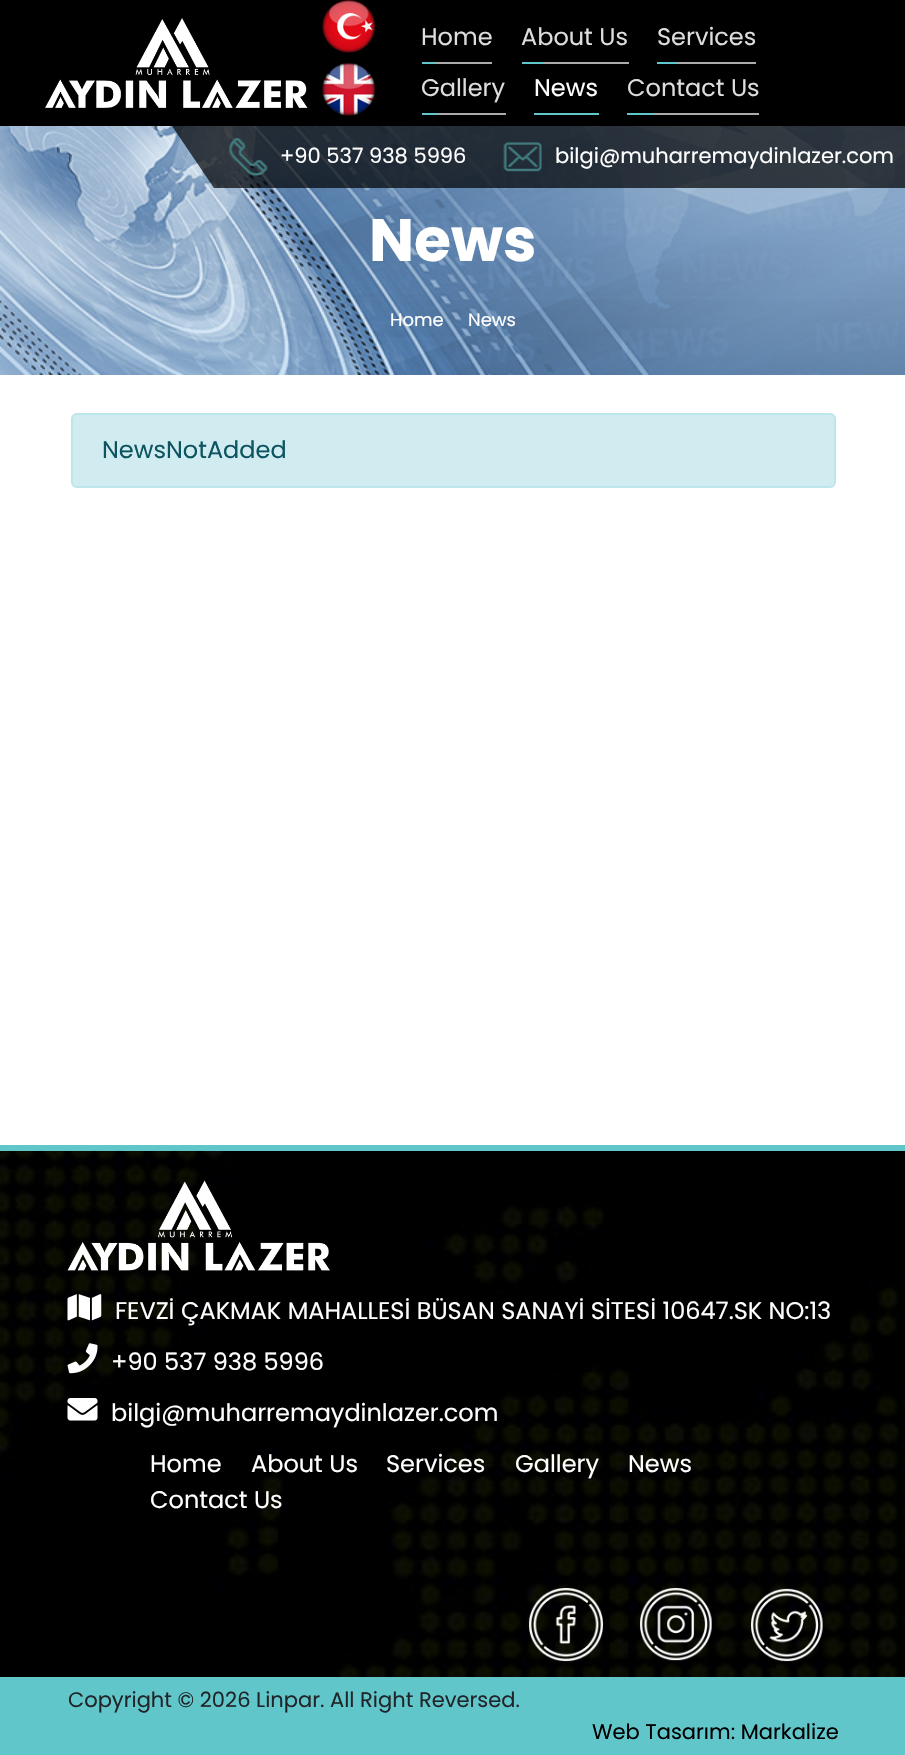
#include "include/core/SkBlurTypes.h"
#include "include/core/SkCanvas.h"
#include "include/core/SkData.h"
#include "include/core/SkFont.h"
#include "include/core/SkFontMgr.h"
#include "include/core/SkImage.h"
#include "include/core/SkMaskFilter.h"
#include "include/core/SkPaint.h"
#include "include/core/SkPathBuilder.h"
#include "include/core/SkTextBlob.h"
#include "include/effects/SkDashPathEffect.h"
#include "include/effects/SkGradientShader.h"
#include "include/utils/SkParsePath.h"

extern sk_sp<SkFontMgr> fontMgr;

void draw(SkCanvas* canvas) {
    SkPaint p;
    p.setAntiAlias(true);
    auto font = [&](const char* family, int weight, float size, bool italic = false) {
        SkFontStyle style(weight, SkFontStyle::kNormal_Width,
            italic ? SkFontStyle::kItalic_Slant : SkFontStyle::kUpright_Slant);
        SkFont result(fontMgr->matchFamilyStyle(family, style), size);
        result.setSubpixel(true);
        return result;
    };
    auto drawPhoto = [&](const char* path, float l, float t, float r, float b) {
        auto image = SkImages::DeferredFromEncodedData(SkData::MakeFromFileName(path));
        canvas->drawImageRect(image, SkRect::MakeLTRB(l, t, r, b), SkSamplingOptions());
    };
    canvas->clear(0xFFFFFFFF);
    p.setColor(0xFF000000);
    canvas->drawRect(SkRect::MakeLTRB(0, 0, 905, 126), p);
    drawPhoto("media/1.png", 45, 18, 308, 108);
    drawPhoto("media/2.png", 322, 0, 375, 53);
    drawPhoto("media/3.png", 322, 63, 375, 116);
    auto font1 = font("Poppins", 400, 24);
    p.setColor(0xFFDDDDDD);
    canvas->drawString("Home", 421, 45, font1, p);
    p.setColor(0xFF60C6CA);
    canvas->drawRect(SkRect::MakeLTRB(422, 62, 435, 64), p);
    p.setColor(0xFFABABAB);
    canvas->drawRect(SkRect::MakeLTRB(435, 62, 492, 64), p);
    p.setColor(0xFFDDDDDD);
    canvas->drawString("About Us", 521, 45, font1, p);
    p.setColor(0xFF60C6CA);
    canvas->drawRect(SkRect::MakeLTRB(522, 62, 543, 64), p);
    p.setColor(0xFFABABAB);
    canvas->drawRect(SkRect::MakeLTRB(543, 62, 629, 64), p);
    p.setColor(0xFFDDDDDD);
    canvas->drawString("Services", 657, 45, font1, p);
    p.setColor(0xFF60C6CA);
    canvas->drawRect(SkRect::MakeLTRB(657, 62, 677, 64), p);
    p.setColor(0xFFABABAB);
    canvas->drawRect(SkRect::MakeLTRB(677, 62, 756, 64), p);
    p.setColor(0xFFDDDDDD);
    canvas->drawString("Gallery", 421, 96, font1, p);
    p.setColor(0xFF60C6CA);
    canvas->drawRect(SkRect::MakeLTRB(422, 113, 438, 115), p);
    p.setColor(0xFFABABAB);
    canvas->drawRect(SkRect::MakeLTRB(438, 113, 506, 115), p);
    p.setColor(0xFFFFFFFF);
    canvas->drawString("News", 534, 96, font1, p);
    p.setColor(0xFF60C6CA);
    canvas->drawRect(SkRect::MakeLTRB(534, 113, 599, 115), p);
    p.setColor(0xFFDDDDDD);
    canvas->drawString("Contact Us", 627, 96, font1, p);
    p.setColor(0xFF60C6CA);
    canvas->drawRect(SkRect::MakeLTRB(627, 113, 653, 115), p);
    p.setColor(0xFFABABAB);
    canvas->drawRect(SkRect::MakeLTRB(653, 113, 759, 115), p);
    drawPhoto("media/6.png", 0, 126, 905, 375);
    p.setColor(0xB3000000);
    canvas->drawRect(SkRect::MakeLTRB(218, 126, 905, 188), p);
    canvas->save();
    canvas->clipRect(SkRect::MakeLTRB(0, 126, 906, 188));
    canvas->drawPath(SkPathBuilder().moveTo(218, 126).lineTo(218, 194).lineTo(172, 126).close().detach(), p);
    canvas->restore();
    drawPhoto("media/4.png", 229, 138, 268, 176);
    auto font2 = font("Poppins", 400, 21);
    p.setColor(0xFFFFFFFF);
    canvas->drawString("+90 537 938 5996", 280, 163, font2, p);
    drawPhoto("media/5.png", 503, 142, 542, 172);
    canvas->drawString("bilgi@muharremaydinlazer.com", 555, 163, font2, p);
    auto font3 = font("Poppins", 700, 60);
    canvas->drawString("News", 369, 261, font3, p);
    auto font4 = font("Poppins", 400, 18);
    canvas->drawString("Home", 390, 326, font4, p);
    canvas->drawString("News", 468, 326, font4, p);
    p.setColor(0xFFD1ECF1);
    canvas->drawRoundRect(SkRect::MakeLTRB(72, 414, 835, 487), 5, 5, p);
    p.setStyle(SkPaint::kStroke_Style);
    p.setStrokeWidth(2);
    p.setColor(0xFFBEE5EB);
    canvas->drawRoundRect(SkRect::MakeLTRB(72, 414, 835, 487), 5, 5, p);
    p.setStyle(SkPaint::kFill_Style);
    p.setColor(0xFF0C5460);
    canvas->drawString("NewsNotAdded", 102, 458, font1, p);
    drawPhoto("media/7.png", 0, 1151, 905, 1677);
    p.setColor(0xFF60C6CA);
    canvas->drawRect(SkRect::MakeLTRB(0, 1145, 905, 1151), p);
    drawPhoto("media/8.png", 67, 1180, 330, 1271);
    drawPhoto("media/9.png", 67, 1294, 102, 1321);
    p.setColor(0xFFFFFFFF);
    canvas->drawString("FEVZİ ÇAKMAK MAHALLESİ BÜSAN SANAYİ SİTESİ 10647.SK NO:13", 115, 1319, font1, p);
    drawPhoto("media/10.png", 67, 1343, 98, 1374);
    canvas->drawString("+90 537 938 5996", 111, 1370, font1, p);
    drawPhoto("media/11.png", 67, 1398, 98, 1421);
    {
        const struct { const char* s; float x, y; } items[] = {
            {"bilgi@muharremaydinlazer.com", 111, 1421},
            {"Home", 150, 1472},
            {"About Us", 251, 1472},
            {"Services", 386, 1472},
            {"Gallery", 515, 1472},
            {"News", 628, 1472},
            {"Contact Us", 150, 1508},
        };
        for (auto [s, x, y] : items) {
            canvas->drawString(s, x, y, font1, p);
        }
    }
    drawPhoto("media/12.png", 529, 1588, 603, 1662);
    drawPhoto("media/13.png", 640, 1588, 712, 1661);
    drawPhoto("media/14.png", 751, 1588, 823, 1662);
    p.setColor(0xFF60C6CA);
    canvas->drawRect(SkRect::MakeLTRB(0, 1677, 905, 1755), p);
    p.setColor(0xFF212529);
    canvas->drawString("Copyright © 2026 Linpar. All Right Reversed.", 68, 1707, font2, p);
    p.setColor(0xFF000000);
    canvas->drawString("Web Tasarım: Markalize", 592, 1739, font2, p);
}
